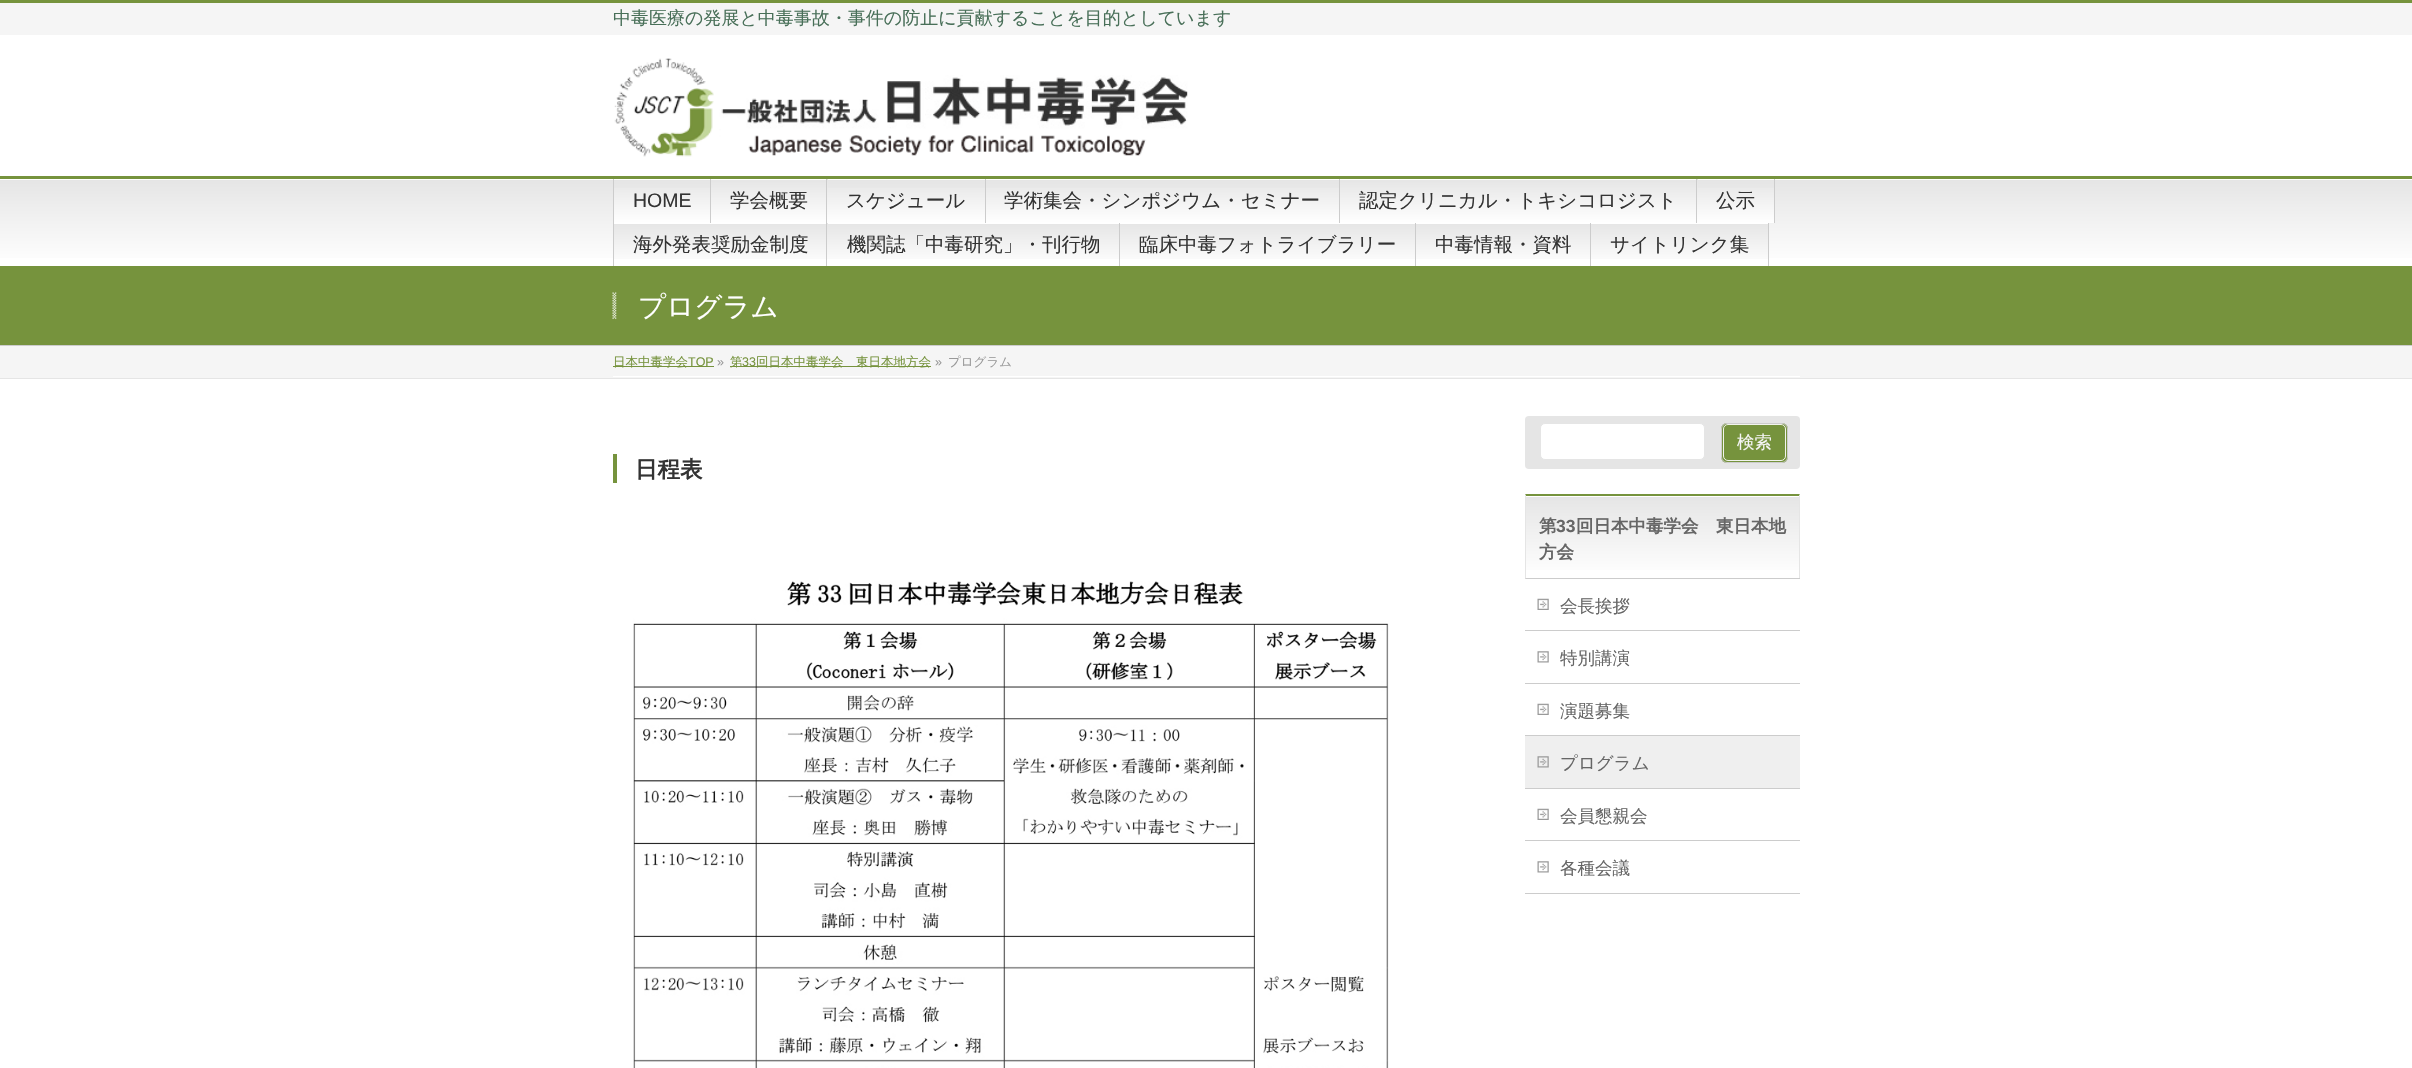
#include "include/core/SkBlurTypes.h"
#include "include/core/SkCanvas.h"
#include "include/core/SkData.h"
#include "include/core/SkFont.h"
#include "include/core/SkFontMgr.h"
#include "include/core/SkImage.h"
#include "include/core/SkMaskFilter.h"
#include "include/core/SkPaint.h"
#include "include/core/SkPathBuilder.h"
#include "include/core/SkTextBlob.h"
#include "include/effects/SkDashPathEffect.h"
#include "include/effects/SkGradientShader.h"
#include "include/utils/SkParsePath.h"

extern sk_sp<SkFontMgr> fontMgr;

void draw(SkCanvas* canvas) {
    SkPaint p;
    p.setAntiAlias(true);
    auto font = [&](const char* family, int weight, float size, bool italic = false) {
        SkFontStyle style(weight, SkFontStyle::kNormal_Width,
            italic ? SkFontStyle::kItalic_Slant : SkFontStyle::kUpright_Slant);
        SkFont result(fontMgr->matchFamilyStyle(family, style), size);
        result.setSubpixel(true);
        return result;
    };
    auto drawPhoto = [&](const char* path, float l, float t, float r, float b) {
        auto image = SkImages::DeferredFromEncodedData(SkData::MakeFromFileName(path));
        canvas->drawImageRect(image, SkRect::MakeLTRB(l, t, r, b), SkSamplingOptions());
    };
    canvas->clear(0xFFFFFFFF);
    p.setColor(0xFFF5F5F5);
    canvas->drawRect(SkRect::MakeLTRB(0, 3, 2412, 35), p);
    p.setColor(0xFF76933D);
    canvas->drawRect(SkRect::MakeLTRB(0, 0, 2412, 3), p);
    auto font1 = font("WenQuanYi Zen Hei", 500, 18);
    p.setColor(0xFF486F58);
    canvas->drawString("中毒医療の発展と中毒事故・事件の防止に貢献することを目的としています", 613, 24, font1, p);
    drawPhoto("media/1.png", 614, 58, 1188, 157);
    {
        const SkColor colors[] = {0xFFE5E5E5, 0xFFFFFFFF};
        const float stops[] = {0, 1};
        const SkPoint ends[] = {{1206, 179}, {1206, 266}};
        p.setShader(SkGradientShader::MakeLinear(ends, colors, stops, 2, SkTileMode::kClamp));
        p.setAlpha(255);
    }
    canvas->drawRect(SkRect::MakeLTRB(0, 180, 2412, 258), p);
    p.setShader(nullptr);
    p.setColor(0xFF76933D);
    canvas->drawRect(SkRect::MakeLTRB(0, 176, 2412, 179), p);
    p.setColor(0xFFCCCCCC);
    canvas->drawRect(SkRect::MakeLTRB(613, 179, 614, 266), p);
    {
        const SkColor colors[] = {0xFFE5E5E5, 0xFFFFFFFF};
        const float stops[] = {0, 1};
        const SkPoint ends[] = {{614, 179}, {614, 223}};
        p.setShader(SkGradientShader::MakeLinear(ends, colors, stops, 2, SkTileMode::kClamp));
        p.setAlpha(255);
    }
    canvas->drawRect(SkRect::MakeLTRB(614, 188, 710, 223), p);
    p.setShader(nullptr);
    p.setColor(0xFFCCCCCC);
    canvas->drawRect(SkRect::MakeLTRB(710, 179, 711, 223), p);
    auto font2 = font("Liberation Sans", 400, 19.5f);
    p.setColor(0xFF333333);
    canvas->drawString("HOME", 633, 207, font2, p);
    {
        const SkColor colors[] = {0xFFE5E5E5, 0xFFFFFFFF};
        const float stops[] = {0, 1};
        const SkPoint ends[] = {{711, 179}, {711, 223}};
        p.setShader(SkGradientShader::MakeLinear(ends, colors, stops, 2, SkTileMode::kClamp));
        p.setAlpha(255);
    }
    canvas->drawRect(SkRect::MakeLTRB(711, 179, 828, 223), p);
    p.setShader(nullptr);
    p.setColor(0xFFFFFFFF);
    canvas->drawRect(SkRect::MakeLTRB(711, 179, 826, 180), p);
    p.setColor(0xFFCCCCCC);
    canvas->drawRect(SkRect::MakeLTRB(826, 179, 827, 223), p);
    auto font3 = font("WenQuanYi Zen Hei", 500, 19.5f);
    p.setColor(0xFF333333);
    canvas->drawString("学会概要", 730, 207, font3, p);
    {
        const SkColor colors[] = {0xFFE5E5E5, 0xFFFFFFFF};
        const float stops[] = {0, 1};
        const SkPoint ends[] = {{828, 179}, {828, 223}};
        p.setShader(SkGradientShader::MakeLinear(ends, colors, stops, 2, SkTileMode::kClamp));
        p.setAlpha(255);
    }
    canvas->drawRect(SkRect::MakeLTRB(828, 188, 985, 223), p);
    p.setShader(nullptr);
    p.setColor(0xFFCCCCCC);
    canvas->drawRect(SkRect::MakeLTRB(985, 179, 986, 223), p);
    p.setColor(0xFF333333);
    canvas->drawString("スケジュール", 846, 207, font3, p);
    {
        const SkColor colors[] = {0xFFE5E5E5, 0xFFFFFFFF};
        const float stops[] = {0, 1};
        const SkPoint ends[] = {{986, 179}, {986, 223}};
        p.setShader(SkGradientShader::MakeLinear(ends, colors, stops, 2, SkTileMode::kClamp));
        p.setAlpha(255);
    }
    canvas->drawRect(SkRect::MakeLTRB(986, 188, 1339, 223), p);
    p.setShader(nullptr);
    p.setColor(0xFFCCCCCC);
    canvas->drawRect(SkRect::MakeLTRB(1339, 179, 1340, 223), p);
    p.setColor(0xFF333333);
    canvas->drawString("学術集会・シンポジウム・セミナー", 1004, 207, font3, p);
    {
        const SkColor colors[] = {0xFFE5E5E5, 0xFFFFFFFF};
        const float stops[] = {0, 1};
        const SkPoint ends[] = {{1340, 179}, {1340, 223}};
        p.setShader(SkGradientShader::MakeLinear(ends, colors, stops, 2, SkTileMode::kClamp));
        p.setAlpha(255);
    }
    canvas->drawRect(SkRect::MakeLTRB(1340, 179, 1698, 223), p);
    p.setShader(nullptr);
    p.setColor(0xFFFFFFFF);
    canvas->drawRect(SkRect::MakeLTRB(1340, 179, 1696, 180), p);
    p.setColor(0xFFCCCCCC);
    canvas->drawRect(SkRect::MakeLTRB(1696, 179, 1697, 223), p);
    p.setColor(0xFF333333);
    canvas->drawString("認定クリニカル・トキシコロジスト", 1359, 207, font3, p);
    {
        const SkColor colors[] = {0xFFE5E5E5, 0xFFFFFFFF};
        const float stops[] = {0, 1};
        const SkPoint ends[] = {{1698, 179}, {1698, 223}};
        p.setShader(SkGradientShader::MakeLinear(ends, colors, stops, 2, SkTileMode::kClamp));
        p.setAlpha(255);
    }
    canvas->drawRect(SkRect::MakeLTRB(1698, 188, 1774, 223), p);
    p.setShader(nullptr);
    p.setColor(0xFFCCCCCC);
    canvas->drawRect(SkRect::MakeLTRB(1774, 179, 1775, 223), p);
    p.setColor(0xFF333333);
    canvas->drawString("公示", 1716, 207, font3, p);
    {
        const SkColor colors[] = {0xFFE5E5E5, 0xFFFFFFFF};
        const float stops[] = {0, 1};
        const SkPoint ends[] = {{614, 223}, {614, 266}};
        p.setShader(SkGradientShader::MakeLinear(ends, colors, stops, 2, SkTileMode::kClamp));
        p.setAlpha(255);
    }
    canvas->drawRect(SkRect::MakeLTRB(614, 223, 828, 259), p);
    p.setShader(nullptr);
    p.setColor(0xFFFFFFFF);
    canvas->drawRect(SkRect::MakeLTRB(614, 223, 826, 224), p);
    p.setColor(0xFFCCCCCC);
    canvas->drawRect(SkRect::MakeLTRB(826, 223, 827, 266), p);
    p.setColor(0xFF333333);
    canvas->drawString("海外発表奨励金制度", 633, 251, font3, p);
    {
        const SkColor colors[] = {0xFFE5E5E5, 0xFFFFFFFF};
        const float stops[] = {0, 1};
        const SkPoint ends[] = {{828, 223}, {828, 266}};
        p.setShader(SkGradientShader::MakeLinear(ends, colors, stops, 2, SkTileMode::kClamp));
        p.setAlpha(255);
    }
    canvas->drawRect(SkRect::MakeLTRB(828, 224, 1119, 259), p);
    p.setShader(nullptr);
    p.setColor(0xFFFFFFFF);
    canvas->drawRect(SkRect::MakeLTRB(828, 223, 1119, 224), p);
    p.setColor(0xFFCCCCCC);
    canvas->drawRect(SkRect::MakeLTRB(1119, 223, 1120, 266), p);
    p.setColor(0xFF333333);
    canvas->drawString("機関誌「中毒研究」・刊行物", 847, 251, font3, p);
    {
        const SkColor colors[] = {0xFFE5E5E5, 0xFFFFFFFF};
        const float stops[] = {0, 1};
        const SkPoint ends[] = {{1120, 223}, {1120, 266}};
        p.setShader(SkGradientShader::MakeLinear(ends, colors, stops, 2, SkTileMode::kClamp));
        p.setAlpha(255);
    }
    canvas->drawRect(SkRect::MakeLTRB(1120, 224, 1415, 259), p);
    p.setShader(nullptr);
    p.setColor(0xFFFFFFFF);
    canvas->drawRect(SkRect::MakeLTRB(1120, 223, 1415, 224), p);
    p.setColor(0xFFCCCCCC);
    canvas->drawRect(SkRect::MakeLTRB(1415, 223, 1416, 266), p);
    p.setColor(0xFF333333);
    canvas->drawString("臨床中毒フォトライブラリー", 1139, 251, font3, p);
    {
        const SkColor colors[] = {0xFFE5E5E5, 0xFFFFFFFF};
        const float stops[] = {0, 1};
        const SkPoint ends[] = {{1416, 223}, {1416, 266}};
        p.setShader(SkGradientShader::MakeLinear(ends, colors, stops, 2, SkTileMode::kClamp));
        p.setAlpha(255);
    }
    canvas->drawRect(SkRect::MakeLTRB(1416, 224, 1590, 259), p);
    p.setShader(nullptr);
    p.setColor(0xFFFFFFFF);
    canvas->drawRect(SkRect::MakeLTRB(1416, 223, 1590, 224), p);
    p.setColor(0xFFCCCCCC);
    canvas->drawRect(SkRect::MakeLTRB(1590, 223, 1591, 266), p);
    p.setColor(0xFF333333);
    canvas->drawString("中毒情報・資料", 1435, 251, font3, p);
    {
        const SkColor colors[] = {0xFFE5E5E5, 0xFFFFFFFF};
        const float stops[] = {0, 1};
        const SkPoint ends[] = {{1591, 223}, {1591, 266}};
        p.setShader(SkGradientShader::MakeLinear(ends, colors, stops, 2, SkTileMode::kClamp));
        p.setAlpha(255);
    }
    canvas->drawRect(SkRect::MakeLTRB(1591, 224, 1768, 259), p);
    p.setShader(nullptr);
    p.setColor(0xFFFFFFFF);
    canvas->drawRect(SkRect::MakeLTRB(1591, 223, 1768, 224), p);
    p.setColor(0xFFCCCCCC);
    canvas->drawRect(SkRect::MakeLTRB(1768, 223, 1769, 266), p);
    p.setColor(0xFF333333);
    canvas->drawString("サイトリンク集", 1610, 251, font3, p);
    p.setColor(0xFF76933D);
    canvas->drawRect(SkRect::MakeLTRB(0, 266, 2412, 345), p);
    p.setColor(0xFFCCCCCC);
    canvas->drawRect(SkRect::MakeLTRB(0, 345, 2412, 346), p);
    drawPhoto("media/2.png", 612, 292, 617, 319);
    auto font4 = font("WenQuanYi Zen Hei", 500, 27.5f);
    p.setColor(0xFFFFFFFF);
    canvas->drawString("プログラム", 638, 316, font4, p);
    {
        const struct { float l, t, r, b; SkColor color; } items[] = {
            {0, 346, 2412, 378, 0xFFF5F5F5},
            {0, 378, 2412, 379, 0xFFE5E5E5},
            {613, 376, 1800, 377, 0xFFFFFFFF},
            {613, 366, 714, 367, 0xFF76933D},
        };
        for (auto [l, t, r, b, color] : items) {
            p.setColor(color);
            canvas->drawRect(SkRect::MakeLTRB(l, t, r, b), p);
        }
    }
    auto font5 = font("WenQuanYi Zen Hei", 500, 12.5f);
    canvas->drawString("日本中毒学会", 613, 366, font5, p);
    auto font6 = font("Liberation Sans", 400, 12.5f);
    canvas->drawString("TOP", 688, 366, font6, p);
    p.setColor(0xFF999999);
    canvas->drawString("»", 717, 366, font6, p);
    p.setColor(0xFF76933D);
    canvas->drawRect(SkRect::MakeLTRB(730, 366, 931, 367), p);
    canvas->drawString("第", 730, 366, font5, p);
    canvas->drawString("33", 742, 366, font6, p);
    canvas->drawString("回日本中毒学会　東日本地方会", 756, 366, font5, p);
    p.setColor(0xFF999999);
    canvas->drawString("»", 935, 366, font6, p);
    canvas->drawString("プログラム", 948, 366, font5, p);
    p.setColor(0xFF76933D);
    canvas->drawRect(SkRect::MakeLTRB(613, 454, 617, 483), p);
    auto font7 = font("WenQuanYi Zen Hei", 700, 22.5f);
    p.setColor(0xFF333333);
    canvas->drawString("日程表", 635, 477, font7, p);
    drawPhoto("media/3.png", 633, 581, 1389, 1068);
    p.setColor(0xFFE5E5E5);
    canvas->drawRoundRect(SkRect::MakeLTRB(1525, 416, 1800, 469), 4, 4, p);
    p.setColor(0xFFFFFFFF);
    canvas->drawRoundRect(SkRect::MakeLTRB(1540.5f, 423.5f, 1704.5f, 459.5f), 4.5f, 4.5f, p);
    p.setStyle(SkPaint::kStroke_Style);
    p.setStrokeWidth(1);
    p.setColor(0xFFE5E5E5);
    canvas->drawRoundRect(SkRect::MakeLTRB(1540.5f, 423.5f, 1704.5f, 459.5f), 4.5f, 4.5f, p);
    p.setStyle(SkPaint::kFill_Style);
    p.setColor(0xFF76933D);
    canvas->drawRoundRect(SkRect::MakeLTRB(1721, 423, 1788, 463), 6, 6, p);
    p.setStyle(SkPaint::kStroke_Style);
    p.setColor(0xFFF1F4EC);
    canvas->drawRoundRect(SkRect::MakeLTRB(1723.5f, 424.5f, 1785.5f, 460.5f), 4.5f, 4.5f, p);
    p.setColor(0xFFCCCCCC);
    canvas->drawRoundRect(SkRect::MakeLTRB(1721.5f, 423.5f, 1787.5f, 462.5f), 5.5f, 5.5f, p);
    auto font8 = font("WenQuanYi Zen Hei", 500, 17.5f);
    p.setStyle(SkPaint::kFill_Style);
    p.setColor(0xFFF5F5F5);
    canvas->drawString("検索", 1737, 448, font8, p);
    {
        const SkColor colors[] = {0xFFE5E5E5, 0xFFFFFFFF};
        const float stops[] = {0, 1};
        const SkPoint ends[] = {{1526, 496}, {1526, 578}};
        p.setShader(SkGradientShader::MakeLinear(ends, colors, stops, 2, SkTileMode::kClamp));
        p.setAlpha(255);
    }
    canvas->drawRect(SkRect::MakeLTRB(1526, 497, 1799, 570), p);
    p.setShader(nullptr);
    p.setColor(0xFF76933D);
    canvas->drawPath(SkPathBuilder().moveTo(1525, 494).lineTo(1800, 494).lineTo(1799, 496).lineTo(1526, 496).close().detach(), p);
    p.setColor(0xFFE5E5E5);
    canvas->drawPath(SkPathBuilder().moveTo(1800, 494).lineTo(1800, 579).lineTo(1799, 578).lineTo(1799, 496).close().detach(), p);
    p.setColor(0xFFCCCCCC);
    canvas->drawRect(SkRect::MakeLTRB(1525, 578, 1800, 579), p);
    p.setColor(0xFFE5E5E5);
    canvas->drawPath(SkPathBuilder().moveTo(1525, 579).lineTo(1525, 494).lineTo(1526, 496).lineTo(1526, 578).close().detach(), p);
    auto font9 = font("WenQuanYi Zen Hei", 700, 17.5f);
    p.setColor(0xFF666666);
    canvas->drawString("第", 1539, 532, font9, p);
    auto font10 = font("Liberation Sans", 700, 17.5f);
    canvas->drawString("33", 1556, 532, font10, p);
    canvas->drawString("回日本中毒学会　東日本地", 1576, 532, font9, p);
    canvas->drawString("方会", 1539, 558, font9, p);
    p.setColor(0xFFCCCCCC);
    canvas->drawRect(SkRect::MakeLTRB(1525, 630, 1800, 631), p);
    drawPhoto("media/4.png", 1537, 598, 1549, 610);
    p.setColor(0xFF666666);
    canvas->drawString("会長挨拶", 1560, 612, font8, p);
    p.setColor(0xFFCCCCCC);
    canvas->drawRect(SkRect::MakeLTRB(1525, 683, 1800, 684), p);
    drawPhoto("media/5.png", 1537, 651, 1549, 663);
    p.setColor(0xFF666666);
    canvas->drawString("特別講演", 1560, 664, font8, p);
    p.setColor(0xFFCCCCCC);
    canvas->drawRect(SkRect::MakeLTRB(1525, 735, 1800, 736), p);
    drawPhoto("media/4.png", 1537, 703, 1549, 715);
    p.setColor(0xFF666666);
    canvas->drawString("演題募集", 1560, 717, font8, p);
    p.setColor(0xFFCCCCCC);
    canvas->drawRect(SkRect::MakeLTRB(1525, 788, 1800, 789), p);
    p.setColor(0xFFEFEFEF);
    canvas->drawRect(SkRect::MakeLTRB(1525, 736, 1800, 788), p);
    drawPhoto("media/6.png", 1537, 756, 1549, 768);
    p.setColor(0xFF666666);
    canvas->drawString("プログラム", 1560, 769, font8, p);
    p.setColor(0xFFCCCCCC);
    canvas->drawRect(SkRect::MakeLTRB(1525, 840, 1800, 841), p);
    drawPhoto("media/4.png", 1537, 808, 1549, 820);
    p.setColor(0xFF666666);
    canvas->drawString("会員懇親会", 1560, 822, font8, p);
    p.setColor(0xFFCCCCCC);
    canvas->drawRect(SkRect::MakeLTRB(1525, 893, 1800, 894), p);
    drawPhoto("media/5.png", 1537, 861, 1549, 873);
    p.setColor(0xFF666666);
    canvas->drawString("各種会議", 1560, 874, font8, p);
}
